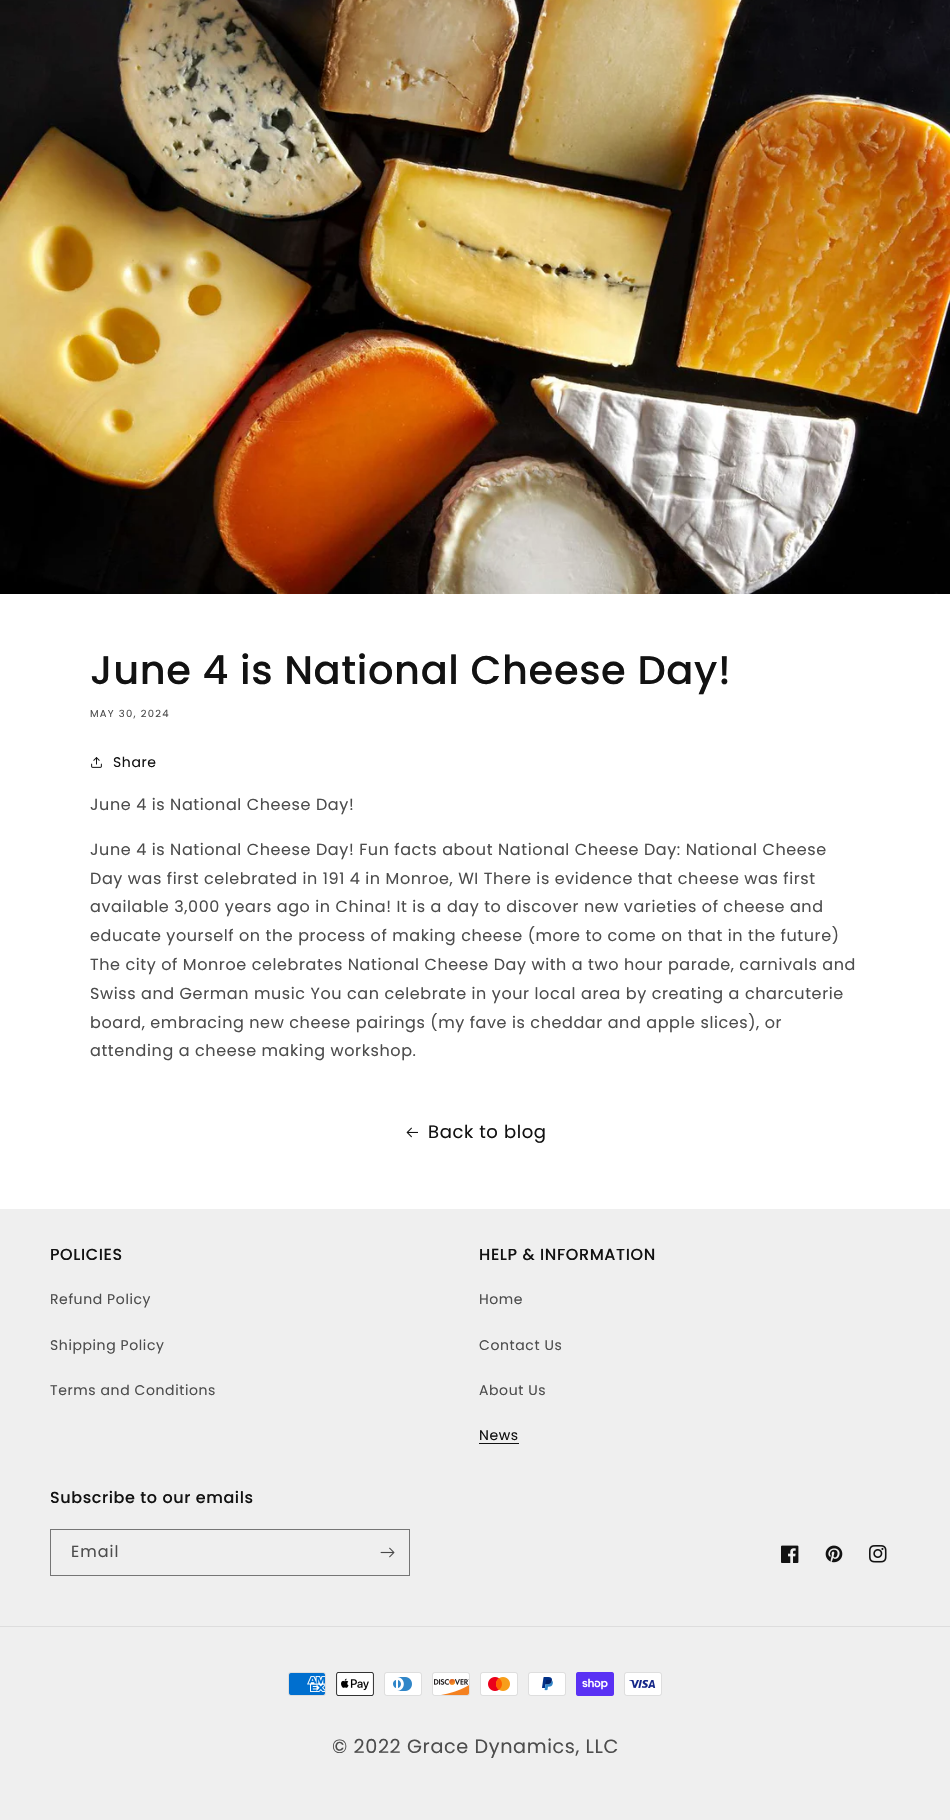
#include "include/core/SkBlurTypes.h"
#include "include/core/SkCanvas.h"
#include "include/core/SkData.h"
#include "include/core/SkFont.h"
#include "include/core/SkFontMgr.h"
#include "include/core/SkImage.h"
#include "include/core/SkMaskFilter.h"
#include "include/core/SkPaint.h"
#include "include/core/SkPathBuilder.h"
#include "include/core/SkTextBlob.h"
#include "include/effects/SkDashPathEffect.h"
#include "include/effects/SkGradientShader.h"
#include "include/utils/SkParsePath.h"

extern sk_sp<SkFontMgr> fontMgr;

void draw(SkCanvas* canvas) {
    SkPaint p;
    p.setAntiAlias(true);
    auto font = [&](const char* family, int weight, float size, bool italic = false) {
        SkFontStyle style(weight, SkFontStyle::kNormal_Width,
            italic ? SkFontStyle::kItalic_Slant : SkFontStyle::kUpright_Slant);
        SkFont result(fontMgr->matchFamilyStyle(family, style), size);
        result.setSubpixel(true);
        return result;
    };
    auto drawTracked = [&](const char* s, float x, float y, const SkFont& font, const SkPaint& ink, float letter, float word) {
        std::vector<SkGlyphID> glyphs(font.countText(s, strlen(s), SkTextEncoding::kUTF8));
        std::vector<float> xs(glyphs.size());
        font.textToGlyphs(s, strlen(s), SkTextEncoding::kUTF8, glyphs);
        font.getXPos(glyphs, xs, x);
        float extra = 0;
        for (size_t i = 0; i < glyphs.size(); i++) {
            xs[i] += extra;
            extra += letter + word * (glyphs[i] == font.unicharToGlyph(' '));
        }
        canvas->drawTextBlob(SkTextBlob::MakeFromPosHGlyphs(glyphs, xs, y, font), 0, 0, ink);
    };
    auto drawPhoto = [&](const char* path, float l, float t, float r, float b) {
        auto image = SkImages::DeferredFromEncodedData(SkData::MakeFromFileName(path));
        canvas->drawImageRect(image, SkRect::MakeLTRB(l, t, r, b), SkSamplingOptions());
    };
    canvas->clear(0xFFFFFFFF);
    drawPhoto("media/1.png", 0, 0, 950, 594);
    auto font1 = font("Poppins", 500, 40);
    p.setColor(0xFF121212);
    drawTracked("June 4 is National Cheese Day!", 90, 684, font1, p, 0.6f, 0);
    auto font2 = font("Poppins", 400, 10);
    p.setColor(0xFF4D4D4D);
    drawTracked("MAY 30, 2024", 90, 717, font2, p, 1.25f, 0);
    drawPhoto("media/2.png", 91, 757, 102, 768);
    auto font3 = font("Poppins", 400, 14);
    p.setColor(0xFF121212);
    drawTracked("Share", 113, 767, font3, p, 0.6f, 0);
    auto font4 = font("Poppins", 400, 16);
    p.setColor(0xFF4D4D4D);
    {
        const struct { const char* s; float x, y; } items[] = {
            {"June 4 is National Cheese Day!", 90, 810},
            {"June 4 is National Cheese Day! Fun facts about National Cheese Day: National Cheese", 90, 855},
            {"Day was first celebrated in 191 4 in Monroe, WI There is evidence that cheese was first", 90, 884},
            {"available 3,000 years ago in China! It is a day to discover new varieties of cheese and", 90, 912},
            {"educate yourself on the process of making cheese (more to come on that in the future)", 90, 941},
            {"The city of Monroe celebrates National Cheese Day with a two hour parade, carnivals and", 90, 970},
            {"Swiss and German music You can celebrate in your local area by creating a charcuterie", 90, 999},
            {"board, embracing new cheese pairings (my fave is cheddar and apple slices), or", 90, 1028},
            {"attending a cheese making workshop.", 90, 1056},
        };
        for (auto [s, x, y] : items) {
            drawTracked(s, x, y, font4, p, 0.6f, 0);
        }
    }
    drawPhoto("media/3.png", 406, 1127, 418, 1138);
    auto font5 = font("Poppins", 400, 18);
    p.setColor(0xFF121212);
    drawTracked("Back to blog", 428, 1138, font5, p, 0.6f, 0);
    p.setColor(0xFFEFEFEF);
    canvas->drawRect(SkRect::MakeLTRB(0, 1209, 950, 1820), p);
    auto font6 = font("Poppins", 500, 16);
    p.setColor(0xFF121212);
    drawTracked("POLICIES", 50, 1260, font6, p, 0.6f, 0);
    p.setColor(0xFF4D4D4D);
    {
        const struct { const char* s; float x, y; } items[] = {
            {"Refund Policy", 50, 1304},
            {"Shipping Policy", 50, 1350},
            {"Terms and Conditions", 50, 1395},
        };
        for (auto [s, x, y] : items) {
            drawTracked(s, x, y, font3, p, 0.6f, 0);
        }
    }
    p.setColor(0xFF121212);
    drawTracked("HELP & INFORMATION", 479, 1260, font6, p, 0.6f, 0);
    p.setColor(0xFF4D4D4D);
    {
        const struct { const char* s; float x, y; } items[] = {
            {"Home", 479, 1304},
            {"Contact Us", 479, 1350},
            {"About Us", 479, 1395},
        };
        for (auto [s, x, y] : items) {
            drawTracked(s, x, y, font3, p, 0.6f, 0);
        }
    }
    p.setColor(0xFF121212);
    drawTracked("News", 479, 1440, font3, p, 0.6f, 0);
    canvas->drawRect(SkRect::MakeLTRB(479, 1443, 519, 1444), p);
    drawTracked("Subscribe to our emails", 50, 1503, font6, p, 0.6f, 0);
    p.setStyle(SkPaint::kStroke_Style);
    p.setStrokeWidth(1);
    p.setColor(0xFF757575);
    canvas->drawRect(SkRect::MakeLTRB(50.5f, 1529.5f, 409.5f, 1575.5f), p);
    p.setStyle(SkPaint::kFill_Style);
    p.setColor(0xFF4D4D4D);
    drawTracked("Email", 71, 1557, font4, p, 1, 0);
    drawPhoto("media/4.png", 380, 1547, 395, 1558);
    drawPhoto("media/5.png", 781, 1545, 799, 1563);
    drawPhoto("media/6.png", 825, 1545, 843, 1563);
    drawPhoto("media/7.png", 869, 1545, 887, 1563);
    p.setColor(0xFFDDDDDD);
    canvas->drawRect(SkRect::MakeLTRB(0, 1626, 950, 1627), p);
    drawPhoto("media/8.png", 288, 1672, 326, 1696);
    drawPhoto("media/9.png", 336, 1672, 374, 1696);
    drawPhoto("media/10.png", 384, 1672, 422, 1696);
    drawPhoto("media/11.png", 432, 1672, 470, 1696);
    drawPhoto("media/12.png", 480, 1672, 518, 1696);
    drawPhoto("media/13.png", 528, 1672, 566, 1696);
    drawPhoto("media/14.png", 576, 1672, 614, 1696);
    drawPhoto("media/15.png", 624, 1672, 662, 1696);
    auto font7 = font("Poppins", 400, 19.25f);
    p.setColor(0xFF4D4D4D);
    drawTracked("© 2022 Grace Dynamics, LLC", 332, 1753, font7, p, 0.6f, 0);
}
